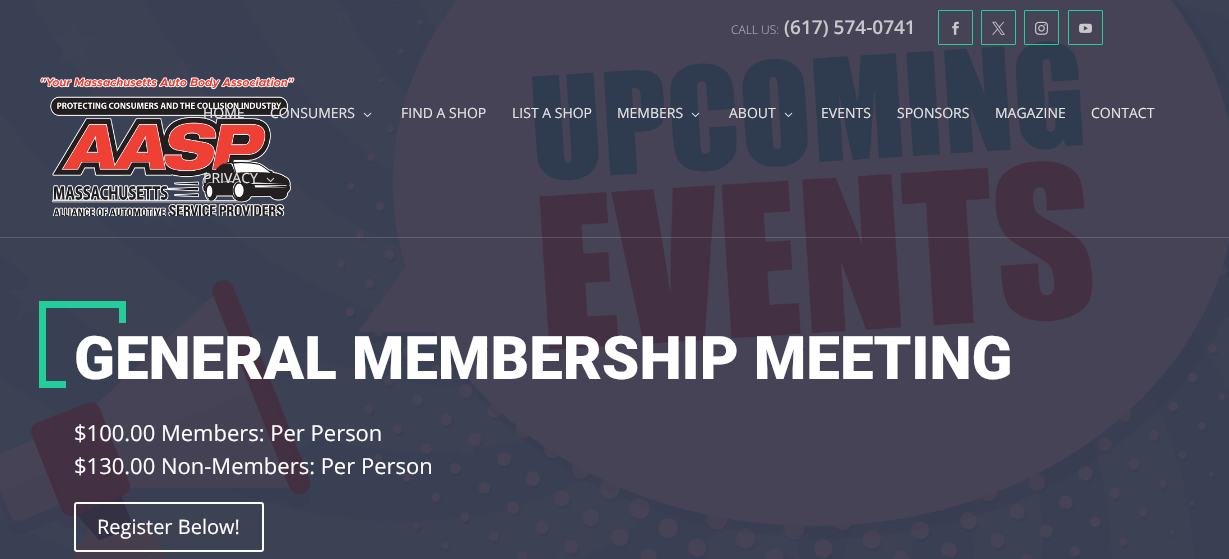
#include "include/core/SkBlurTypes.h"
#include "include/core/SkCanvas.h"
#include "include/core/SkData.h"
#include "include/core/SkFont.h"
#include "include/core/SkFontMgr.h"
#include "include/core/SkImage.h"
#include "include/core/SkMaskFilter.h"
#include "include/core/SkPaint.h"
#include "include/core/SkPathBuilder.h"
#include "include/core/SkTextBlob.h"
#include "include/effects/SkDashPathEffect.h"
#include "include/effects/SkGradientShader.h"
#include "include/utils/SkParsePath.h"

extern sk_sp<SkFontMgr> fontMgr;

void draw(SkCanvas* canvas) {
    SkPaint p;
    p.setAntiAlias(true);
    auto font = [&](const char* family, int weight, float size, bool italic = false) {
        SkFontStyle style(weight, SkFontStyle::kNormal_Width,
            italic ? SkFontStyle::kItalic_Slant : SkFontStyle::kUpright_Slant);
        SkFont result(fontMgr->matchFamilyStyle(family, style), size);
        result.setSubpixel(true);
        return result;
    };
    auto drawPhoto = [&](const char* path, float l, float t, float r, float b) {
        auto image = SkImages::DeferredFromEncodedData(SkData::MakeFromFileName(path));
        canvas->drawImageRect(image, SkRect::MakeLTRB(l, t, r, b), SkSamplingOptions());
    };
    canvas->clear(0xFFFFFFFF);
    drawPhoto("media/10.png", 0, 0, 1229, 559);
    auto font1 = font("Open Sans", 300, 12);
    p.setColor(0xFFB4B3BB);
    canvas->drawString("CALL US:", 731, 34, font1, p);
    auto font2 = font("Open Sans", 600, 19);
    p.setColor(0xFFC8C7CC);
    canvas->drawString("(617) 574-0741", 784, 34, font2, p);
    p.setStyle(SkPaint::kStroke_Style);
    p.setStrokeWidth(1);
    p.setColor(0xFF23CE9A);
    canvas->drawRoundRect(SkRect::MakeLTRB(938.5f, 10.5f, 972.5f, 44.5f), 0.5f, 0.5f, p);
    drawPhoto("media/1.png", 952, 21, 959, 35);
    canvas->drawRoundRect(SkRect::MakeLTRB(981.5f, 10.5f, 1015.5f, 44.5f), 0.5f, 0.5f, p);
    drawPhoto("media/2.png", 992, 21, 1005, 35);
    canvas->drawRoundRect(SkRect::MakeLTRB(1024.5f, 10.5f, 1058.5f, 44.5f), 0.5f, 0.5f, p);
    drawPhoto("media/3.png", 1035, 21, 1048, 35);
    canvas->drawRoundRect(SkRect::MakeLTRB(1068.5f, 10.5f, 1102.5f, 44.5f), 0.5f, 0.5f, p);
    drawPhoto("media/4.png", 1079, 23, 1092, 33);
    p.setStyle(SkPaint::kFill_Style);
    p.setColor(0x26FFFFFF);
    canvas->drawRect(SkRect::MakeLTRB(0, 237, 1229, 238), p);
    drawPhoto("media/5.png", 40, 76, 295, 216);
    auto font3 = font("Open Sans", 400, 14);
    p.setColor(0xFFE4E4E4);
    canvas->drawString("HOME", 203, 118, font3, p);
    canvas->drawString("CONSUMERS", 270, 118, font3, p);
    drawPhoto("media/6.png", 363, 112, 372, 117);
    {
        const struct { const char* s; float x, y; } items[] = {
            {"FIND A SHOP", 401, 118},
            {"LIST A SHOP", 512, 118},
            {"MEMBERS", 617, 118},
        };
        for (auto [s, x, y] : items) {
            canvas->drawString(s, x, y, font3, p);
        }
    }
    drawPhoto("media/7.png", 691, 112, 700, 117);
    canvas->drawString("ABOUT", 729, 118, font3, p);
    drawPhoto("media/8.png", 784, 112, 793, 117);
    {
        const struct { const char* s; float x, y; } items[] = {
            {"EVENTS", 821, 118},
            {"SPONSORS", 897, 118},
            {"MAGAZINE", 995, 118},
            {"CONTACT", 1091, 118},
            {"PRIVACY", 203, 183},
        };
        for (auto [s, x, y] : items) {
            canvas->drawString(s, x, y, font3, p);
        }
    }
    drawPhoto("media/9.png", 266, 177, 275, 182);
    {
        const struct { float l, t, r, b; SkColor color; } items[] = {
            {39, 381, 66, 388, 0xFF23CE9A},
            {39, 301, 46, 388, 0xFF23CE9A},
            {39, 301, 126, 308, 0xFF23CE9A},
            {119, 301, 126, 323, 0xFF23CE9A},
        };
        for (auto [l, t, r, b, color] : items) {
            p.setColor(color);
            canvas->drawRect(SkRect::MakeLTRB(l, t, r, b), p);
        }
    }
    auto font4 = font("Roboto", 900, 60);
    p.setColor(0xFFFFFFFF);
    canvas->drawString("GENERAL MEMBERSHIP MEETING", 74, 379, font4, p);
    auto font5 = font("Open Sans", 400, 22);
    canvas->drawString("$100.00 Members: Per Person", 74, 441, font5, p);
    canvas->drawString("$130.00 Non-Members: Per Person", 74, 474, font5, p);
    p.setStyle(SkPaint::kStroke_Style);
    p.setStrokeWidth(2);
    canvas->drawRoundRect(SkRect::MakeLTRB(75, 503, 263, 551), 2, 2, p);
    auto font6 = font("Open Sans", 400, 20);
    p.setStyle(SkPaint::kFill_Style);
    canvas->drawString("Register Below!", 97, 534, font6, p);
}
